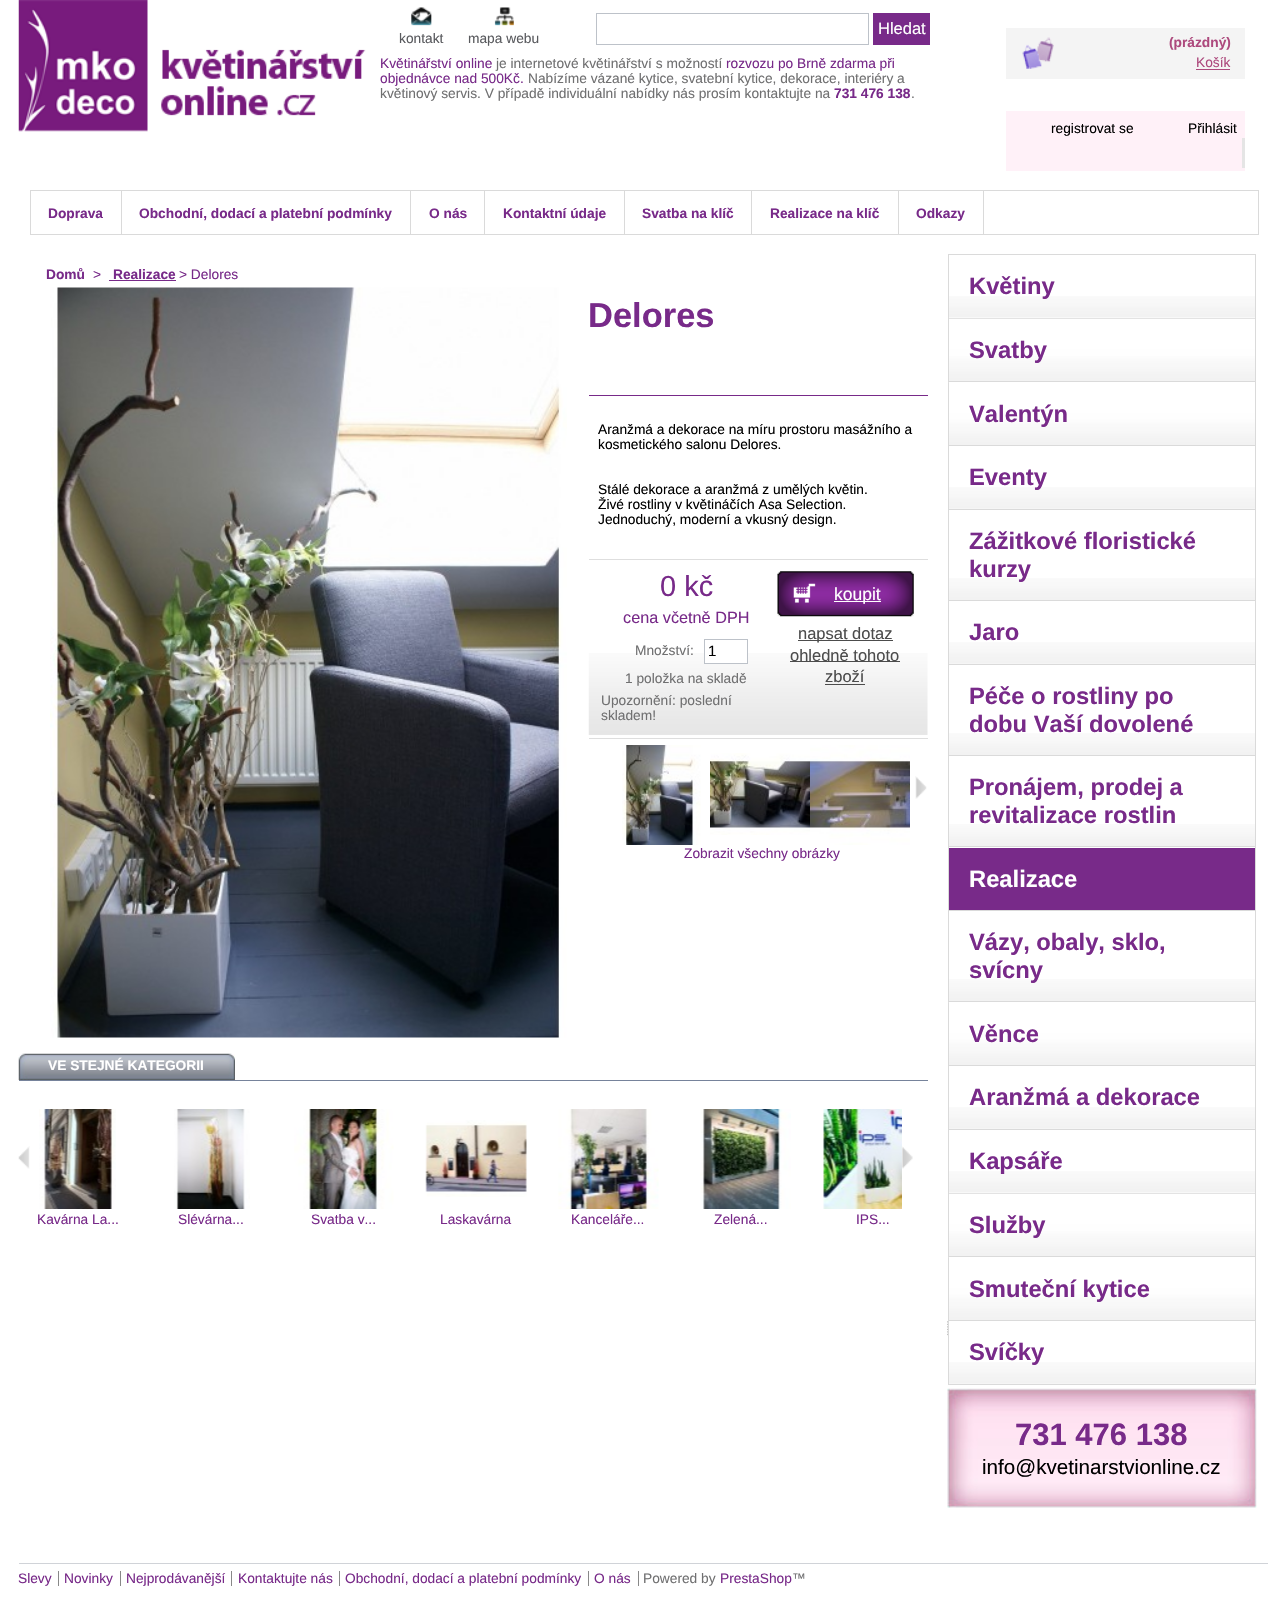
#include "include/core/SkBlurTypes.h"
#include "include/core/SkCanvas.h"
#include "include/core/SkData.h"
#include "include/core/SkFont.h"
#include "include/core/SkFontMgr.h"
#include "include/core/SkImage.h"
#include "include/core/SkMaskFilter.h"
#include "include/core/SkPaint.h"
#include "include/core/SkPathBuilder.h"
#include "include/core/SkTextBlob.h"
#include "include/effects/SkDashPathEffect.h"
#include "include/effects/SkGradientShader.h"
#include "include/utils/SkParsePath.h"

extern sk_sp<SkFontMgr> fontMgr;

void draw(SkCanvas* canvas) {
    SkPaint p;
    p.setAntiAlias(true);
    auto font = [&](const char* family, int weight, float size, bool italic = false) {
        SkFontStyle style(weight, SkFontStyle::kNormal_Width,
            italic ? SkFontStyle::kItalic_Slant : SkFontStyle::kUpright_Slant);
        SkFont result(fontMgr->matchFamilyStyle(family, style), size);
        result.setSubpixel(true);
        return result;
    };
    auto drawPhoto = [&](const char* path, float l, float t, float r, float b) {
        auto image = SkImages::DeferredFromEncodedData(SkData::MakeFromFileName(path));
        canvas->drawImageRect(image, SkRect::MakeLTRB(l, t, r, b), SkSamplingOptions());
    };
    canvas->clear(0xFFFFFFFF);
    drawPhoto("media/1.png", 18, 0, 366, 132);
    p.setStyle(SkPaint::kStroke_Style);
    p.setStrokeWidth(1);
    p.setColor(0xFFBDC2C9);
    canvas->drawRect(SkRect::MakeLTRB(596.5f, 13.5f, 868.5f, 44.5f), p);
    p.setStyle(SkPaint::kFill_Style);
    p.setColor(0xFF782A89);
    canvas->drawRect(SkRect::MakeLTRB(873, 13, 930, 45), p);
    auto font1 = font("Liberation Sans", 400, 16.5f);
    p.setColor(0xFFFFFFFF);
    canvas->drawString("Hledat", 878, 34, font1, p);
    drawPhoto("media/2.png", 411, 7, 432, 26);
    auto font2 = font("Liberation Sans", 400, 13.75f);
    p.setColor(0xFF595A5E);
    canvas->drawString("kontakt", 399, 43, font2, p);
    drawPhoto("media/3.png", 494, 7, 514, 26);
    canvas->drawString("mapa webu", 468, 43, font2, p);
    p.setColor(0xFFF4F4F4);
    canvas->drawRect(SkRect::MakeLTRB(1006, 28, 1245, 79), p);
    drawPhoto("media/4.png", 1022, 37, 1054, 69);
    auto font3 = font("Liberation Sans", 700, 13.75f);
    p.setColor(0xFFAD497D);
    canvas->drawString("(prázdný)", 1169, 47, font3, p);
    canvas->drawString("Košík", 1196, 67, font2, p);
    canvas->drawRect(SkRect::MakeLTRB(1196, 69, 1230, 70), p);
    p.setColor(0xFFFFF1F8);
    canvas->drawRect(SkRect::MakeLTRB(1006, 111, 1245, 171), p);
    p.setColor(0xFF000000);
    canvas->drawString("registrovat se", 1051, 133, font2, p);
    canvas->drawString("Přihlásit", 1188, 133, font2, p);
    p.setColor(0xFFE5E5E5);
    canvas->drawRect(SkRect::MakeLTRB(1242, 138, 1245, 168), p);
    p.setColor(0xFF782A89);
    canvas->drawString("Květinářství online", 380, 68, font2, p);
    p.setColor(0xFF707071);
    canvas->drawString("je internetové květinářství s možností", 496, 68, font2, p);
    p.setColor(0xFF782A89);
    canvas->drawString("rozvozu po Brně zdarma při", 726, 68, font2, p);
    canvas->drawString("objednávce nad 500Kč.", 380, 83, font2, p);
    p.setColor(0xFF707071);
    canvas->drawString("Nabízíme vázané kytice, svatební kytice, dekorace, interiéry a", 528, 83, font2, p);
    canvas->drawString("květinový servis. V případě individuální nabídky nás prosím kontaktujte na", 380, 98, font2, p);
    p.setColor(0xFF782A89);
    canvas->drawString("731 476 138", 834, 98, font3, p);
    p.setColor(0xFF707071);
    canvas->drawString(".", 911, 98, font2, p);
    p.setStyle(SkPaint::kStroke_Style);
    p.setColor(0xFFDADADA);
    canvas->drawRect(SkRect::MakeLTRB(30.5f, 190.5f, 1258.5f, 234.5f), p);
    p.setStyle(SkPaint::kFill_Style);
    canvas->drawRect(SkRect::MakeLTRB(121, 191, 122, 234), p);
    p.setColor(0xFF782A89);
    canvas->drawString("Doprava", 48, 218, font3, p);
    p.setColor(0xFFDADADA);
    canvas->drawRect(SkRect::MakeLTRB(410, 191, 411, 234), p);
    p.setColor(0xFF782A89);
    canvas->drawString("Obchodní, dodací a platební podmínky", 139, 218, font3, p);
    p.setColor(0xFFDADADA);
    canvas->drawRect(SkRect::MakeLTRB(484, 191, 485, 234), p);
    p.setColor(0xFF782A89);
    canvas->drawString("O nás", 429, 218, font3, p);
    p.setColor(0xFFDADADA);
    canvas->drawRect(SkRect::MakeLTRB(624, 191, 625, 234), p);
    p.setColor(0xFF782A89);
    canvas->drawString("Kontaktní údaje", 503, 218, font3, p);
    p.setColor(0xFFDADADA);
    canvas->drawRect(SkRect::MakeLTRB(751, 191, 752, 234), p);
    p.setColor(0xFF782A89);
    canvas->drawString("Svatba na klíč", 642, 218, font3, p);
    p.setColor(0xFFDADADA);
    canvas->drawRect(SkRect::MakeLTRB(898, 191, 899, 234), p);
    p.setColor(0xFF782A89);
    canvas->drawString("Realizace na klíč", 770, 218, font3, p);
    p.setColor(0xFFDADADA);
    canvas->drawRect(SkRect::MakeLTRB(983, 191, 984, 234), p);
    p.setColor(0xFF782A89);
    canvas->drawString("Odkazy", 916, 218, font3, p);
    canvas->drawString("Domů", 46, 279, font3, p);
    canvas->drawString(">", 93, 279, font2, p);
    canvas->drawString("Realizace", 113, 279, font3, p);
    canvas->drawRect(SkRect::MakeLTRB(109, 280, 176, 281), p);
    canvas->drawString("> Delores", 179, 279, font2, p);
    drawPhoto("media/5.png", 50, 287, 567, 1038);
    auto font4 = font("Liberation Sans", 700, 34.5f);
    canvas->drawString("Delores", 588, 327, font4, p);
    canvas->drawRect(SkRect::MakeLTRB(589, 395, 928, 396), p);
    p.setColor(0xFF000000);
    {
        const struct { const char* s; float x, y; } items[] = {
            {"Aranžmá a dekorace na míru prostoru masážního a", 598, 434},
            {"kosmetického salonu Delores.", 598, 449},
            {"Stálé dekorace a aranžmá z umělých květin.", 598, 494},
            {"Živé rostliny v květináčích Asa Selection.", 598, 509},
            {"Jednoduchý, moderní a vkusný design.", 598, 524},
        };
        for (auto [s, x, y] : items) {
            canvas->drawString(s, x, y, font2, p);
        }
    }
    drawPhoto("media/6.png", 588, 653, 928, 735);
    p.setColor(0xFFDEDEDE);
    canvas->drawRect(SkRect::MakeLTRB(589, 559, 928, 560), p);
    canvas->drawRect(SkRect::MakeLTRB(589, 738, 928, 739), p);
    auto font5 = font("Liberation Sans", 400, 29);
    p.setColor(0xFF782A89);
    canvas->drawString("0 kč", 660, 596, font5, p);
    auto font6 = font("Liberation Sans", 400, 16.25f);
    canvas->drawString("cena včetně DPH", 623, 623, font6, p);
    p.setColor(0xFF707071);
    canvas->drawString("Množství:", 635, 655, font2, p);
    p.setColor(0xFFFFFFFF);
    canvas->drawRect(SkRect::MakeLTRB(705, 653, 747, 663), p);
    p.setStyle(SkPaint::kStroke_Style);
    p.setColor(0xFFBDC2C9);
    canvas->drawRect(SkRect::MakeLTRB(704.5f, 639.5f, 747.5f, 663.5f), p);
    auto font7 = font("Liberation Sans", 400, 15);
    p.setStyle(SkPaint::kFill_Style);
    p.setColor(0xFF000000);
    canvas->drawString("1", 708, 656, font7, p);
    p.setColor(0xFF707071);
    {
        const struct { const char* s; float x, y; } items[] = {
            {"1 položka na skladě", 625, 683},
            {"Upozornění: poslední", 601, 705},
            {"skladem!", 601, 720},
        };
        for (auto [s, x, y] : items) {
            canvas->drawString(s, x, y, font2, p);
        }
    }
    drawPhoto("media/7.png", 777, 571, 914, 617);
    p.setColor(0xFFFFFFFF);
    canvas->drawRect(SkRect::MakeLTRB(834, 601, 881, 602), p);
    auto font8 = font("Liberation Sans", 400, 17.5f);
    canvas->drawString("koupit", 834, 600, font8, p);
    p.setColor(0xFF4C4C4C);
    canvas->drawRect(SkRect::MakeLTRB(798, 640, 893, 641), p);
    canvas->drawString("napsat dotaz", 798, 639, font1, p);
    canvas->drawRect(SkRect::MakeLTRB(790, 661, 900, 662), p);
    canvas->drawString("ohledně tohoto", 790, 661, font1, p);
    canvas->drawString("zboží", 825, 682, font1, p);
    canvas->drawRect(SkRect::MakeLTRB(825, 684, 865, 685), p);
    drawPhoto("media/8.png", 622, 745, 701, 845);
    drawPhoto("media/9.png", 710, 753, 810, 835);
    drawPhoto("media/10.png", 810, 745, 910, 845);
    drawPhoto("media/11.png", 915, 776, 927, 799);
    p.setColor(0xFF782A89);
    canvas->drawString("Zobrazit všechny obrázky", 684, 858, font2, p);
    p.setColor(0xFF76839B);
    canvas->drawRect(SkRect::MakeLTRB(19, 1080, 928, 1081), p);
    drawPhoto("media/12.png", 18, 1053, 235, 1080);
    p.setColor(0xFFFFFFFF);
    canvas->drawString("VE STEJNÉ KATEGORII", 48, 1070, font3, p);
    drawPhoto("media/13.png", 18, 1146, 30, 1169);
    drawPhoto("media/14.png", 902, 1146, 913, 1169);
    drawPhoto("media/15.png", 39, 1109, 116, 1209);
    p.setColor(0xFF782A89);
    canvas->drawString("Kavárna La...", 37, 1224, font2, p);
    drawPhoto("media/16.png", 174, 1109, 250, 1209);
    canvas->drawString("Slévárna...", 178, 1224, font2, p);
    drawPhoto("media/17.png", 294, 1109, 394, 1209);
    canvas->drawString("Svatba v...", 311, 1224, font2, p);
    drawPhoto("media/18.png", 425, 1120, 527, 1197);
    canvas->drawString("Laskavárna", 440, 1224, font2, p);
    drawPhoto("media/19.png", 558, 1109, 659, 1209);
    canvas->drawString("Kanceláře...", 571, 1224, font2, p);
    drawPhoto("media/20.png", 700, 1109, 791, 1209);
    canvas->drawString("Zelená...", 714, 1224, font2, p);
    drawPhoto("media/21.png", 823, 1109, 902, 1209);
    canvas->drawString("IPS...", 856, 1224, font2, p);
    p.setColor(0xFFDADADA);
    canvas->drawRect(SkRect::MakeLTRB(948, 254, 1256, 255), p);
    drawPhoto("media/22.png", 949, 296, 1255, 318);
    {
        const struct { float l, t, r, b; SkColor color; } items[] = {
            {1255, 255, 1256, 1385, 0xFFDADADA},
            {948, 318, 1256, 319, 0xFFDADADA},
            {948, 255, 949, 319, 0xFFDADADA},
        };
        for (auto [l, t, r, b, color] : items) {
            p.setColor(color);
            canvas->drawRect(SkRect::MakeLTRB(l, t, r, b), p);
        }
    }
    auto font9 = font("Liberation Sans", 700, 23.75f);
    p.setColor(0xFF782A89);
    canvas->drawString("Květiny", 969, 294, font9, p);
    drawPhoto("media/23.png", 949, 318, 1255, 381);
    p.setColor(0xFFDADADA);
    canvas->drawRect(SkRect::MakeLTRB(948, 381, 1256, 382), p);
    canvas->drawRect(SkRect::MakeLTRB(948, 319, 949, 383), p);
    p.setColor(0xFF782A89);
    canvas->drawString("Svatby", 969, 358, font9, p);
    drawPhoto("media/24.png", 948, 382, 1255, 445);
    p.setColor(0xFFDADADA);
    canvas->drawRect(SkRect::MakeLTRB(948, 445, 1256, 446), p);
    canvas->drawRect(SkRect::MakeLTRB(948, 383, 949, 446), p);
    p.setColor(0xFF782A89);
    canvas->drawString("Valentýn", 969, 422, font9, p);
    drawPhoto("media/25.png", 949, 487, 1255, 509);
    p.setColor(0xFFDADADA);
    canvas->drawRect(SkRect::MakeLTRB(948, 509, 1256, 510), p);
    canvas->drawRect(SkRect::MakeLTRB(948, 446, 949, 510), p);
    p.setColor(0xFF782A89);
    canvas->drawString("Eventy", 969, 485, font9, p);
    drawPhoto("media/26.png", 949, 578, 1255, 600);
    p.setColor(0xFFDADADA);
    canvas->drawRect(SkRect::MakeLTRB(948, 600, 1256, 601), p);
    canvas->drawRect(SkRect::MakeLTRB(948, 510, 949, 601), p);
    p.setColor(0xFF782A89);
    canvas->drawString("Zážitkové floristické", 969, 549, font9, p);
    canvas->drawString("kurzy", 969, 577, font9, p);
    drawPhoto("media/25.png", 949, 642, 1255, 664);
    p.setColor(0xFFDADADA);
    canvas->drawRect(SkRect::MakeLTRB(948, 664, 1256, 665), p);
    canvas->drawRect(SkRect::MakeLTRB(948, 601, 949, 665), p);
    p.setColor(0xFF782A89);
    canvas->drawString("Jaro", 969, 640, font9, p);
    drawPhoto("media/26.png", 949, 733, 1255, 755);
    p.setColor(0xFFDADADA);
    canvas->drawRect(SkRect::MakeLTRB(948, 755, 1256, 756), p);
    canvas->drawRect(SkRect::MakeLTRB(948, 665, 949, 756), p);
    p.setColor(0xFF782A89);
    canvas->drawString("Péče o rostliny po", 969, 704, font9, p);
    canvas->drawString("dobu Vaší dovolené", 969, 732, font9, p);
    drawPhoto("media/27.png", 949, 824, 1255, 846);
    p.setColor(0xFFDADADA);
    canvas->drawRect(SkRect::MakeLTRB(948, 846, 1256, 847), p);
    canvas->drawRect(SkRect::MakeLTRB(948, 756, 949, 848), p);
    p.setColor(0xFF782A89);
    canvas->drawString("Pronájem, prodej a", 969, 795, font9, p);
    canvas->drawString("revitalizace rostlin", 969, 823, font9, p);
    {
        const struct { float l, t, r, b; SkColor color; } items[] = {
            {949, 848, 1255, 910, 0xFF782A89},
            {948, 910, 1256, 911, 0xFFDADADA},
            {948, 848, 949, 911, 0xFFDADADA},
        };
        for (auto [l, t, r, b, color] : items) {
            p.setColor(color);
            canvas->drawRect(SkRect::MakeLTRB(l, t, r, b), p);
        }
    }
    p.setColor(0xFFFFFFFF);
    canvas->drawString("Realizace", 969, 887, font9, p);
    drawPhoto("media/27.png", 949, 979, 1255, 1001);
    p.setColor(0xFFDADADA);
    canvas->drawRect(SkRect::MakeLTRB(948, 1001, 1256, 1002), p);
    canvas->drawRect(SkRect::MakeLTRB(948, 911, 949, 1003), p);
    p.setColor(0xFF782A89);
    canvas->drawString("Vázy, obaly, sklo,", 969, 950, font9, p);
    canvas->drawString("svícny", 969, 978, font9, p);
    drawPhoto("media/24.png", 948, 1002, 1255, 1065);
    p.setColor(0xFFDADADA);
    canvas->drawRect(SkRect::MakeLTRB(948, 1065, 1256, 1066), p);
    canvas->drawRect(SkRect::MakeLTRB(948, 1003, 949, 1066), p);
    p.setColor(0xFF782A89);
    canvas->drawString("Věnce", 969, 1042, font9, p);
    drawPhoto("media/25.png", 949, 1107, 1255, 1129);
    p.setColor(0xFFDADADA);
    canvas->drawRect(SkRect::MakeLTRB(948, 1129, 1256, 1130), p);
    canvas->drawRect(SkRect::MakeLTRB(948, 1066, 949, 1130), p);
    p.setColor(0xFF782A89);
    canvas->drawString("Aranžmá a dekorace", 969, 1105, font9, p);
    drawPhoto("media/22.png", 949, 1171, 1255, 1193);
    p.setColor(0xFFDADADA);
    canvas->drawRect(SkRect::MakeLTRB(948, 1193, 1256, 1194), p);
    canvas->drawRect(SkRect::MakeLTRB(948, 1130, 949, 1194), p);
    p.setColor(0xFF782A89);
    canvas->drawString("Kapsáře", 969, 1169, font9, p);
    drawPhoto("media/23.png", 949, 1193, 1255, 1256);
    p.setColor(0xFFDADADA);
    canvas->drawRect(SkRect::MakeLTRB(948, 1256, 1256, 1257), p);
    canvas->drawRect(SkRect::MakeLTRB(948, 1194, 949, 1258), p);
    p.setColor(0xFF782A89);
    canvas->drawString("Služby", 969, 1233, font9, p);
    drawPhoto("media/24.png", 948, 1257, 1255, 1320);
    p.setColor(0xFFDADADA);
    canvas->drawRect(SkRect::MakeLTRB(948, 1320, 1256, 1321), p);
    canvas->drawRect(SkRect::MakeLTRB(948, 1258, 949, 1321), p);
    p.setColor(0xFF782A89);
    canvas->drawString("Smuteční kytice", 969, 1297, font9, p);
    drawPhoto("media/28.png", 947, 1321, 948, 1336);
    drawPhoto("media/25.png", 949, 1362, 1255, 1384);
    p.setColor(0xFFDADADA);
    canvas->drawRect(SkRect::MakeLTRB(948, 1384, 1256, 1385), p);
    canvas->drawRect(SkRect::MakeLTRB(948, 1321, 949, 1385), p);
    p.setColor(0xFF782A89);
    canvas->drawString("Svíčky", 969, 1360, font9, p);
    drawPhoto("media/29.png", 947, 1388, 1257, 1508);
    auto font10 = font("Liberation Sans", 700, 31);
    canvas->drawString("731 476 138", 1015, 1445, font10, p);
    auto font11 = font("Liberation Sans", 400, 20.6f);
    p.setColor(0xFF000000);
    canvas->drawString("info@kvetinarstvionline.cz", 982, 1474, font11, p);
    p.setColor(0xFFD0D3D8);
    canvas->drawRect(SkRect::MakeLTRB(19, 1563, 1268, 1564), p);
    p.setColor(0xFF782A89);
    canvas->drawString("Slevy", 18, 1583, font2, p);
    canvas->drawString("Novinky", 64, 1583, font2, p);
    p.setColor(0xFF888888);
    canvas->drawRect(SkRect::MakeLTRB(58, 1571, 59, 1586), p);
    p.setColor(0xFF782A89);
    canvas->drawString("Nejprodávanější", 126, 1583, font2, p);
    p.setColor(0xFF888888);
    canvas->drawRect(SkRect::MakeLTRB(120, 1571, 121, 1586), p);
    p.setColor(0xFF782A89);
    canvas->drawString("Kontaktujte nás", 238, 1583, font2, p);
    p.setColor(0xFF888888);
    canvas->drawRect(SkRect::MakeLTRB(231, 1571, 232, 1586), p);
    p.setColor(0xFF782A89);
    canvas->drawString("Obchodní, dodací a platební podmínky", 345, 1583, font2, p);
    p.setColor(0xFF888888);
    canvas->drawRect(SkRect::MakeLTRB(339, 1571, 340, 1586), p);
    p.setColor(0xFF782A89);
    canvas->drawString("O nás", 594, 1583, font2, p);
    p.setColor(0xFF888888);
    canvas->drawRect(SkRect::MakeLTRB(588, 1571, 589, 1586), p);
    p.setColor(0xFF707071);
    canvas->drawString("Powered by", 643, 1583, font2, p);
    p.setColor(0xFF888888);
    canvas->drawRect(SkRect::MakeLTRB(638, 1571, 639, 1586), p);
    p.setColor(0xFF782A89);
    canvas->drawString("PrestaShop", 720, 1583, font2, p);
    p.setColor(0xFF707071);
    canvas->drawString("™", 792, 1583, font2, p);
}
